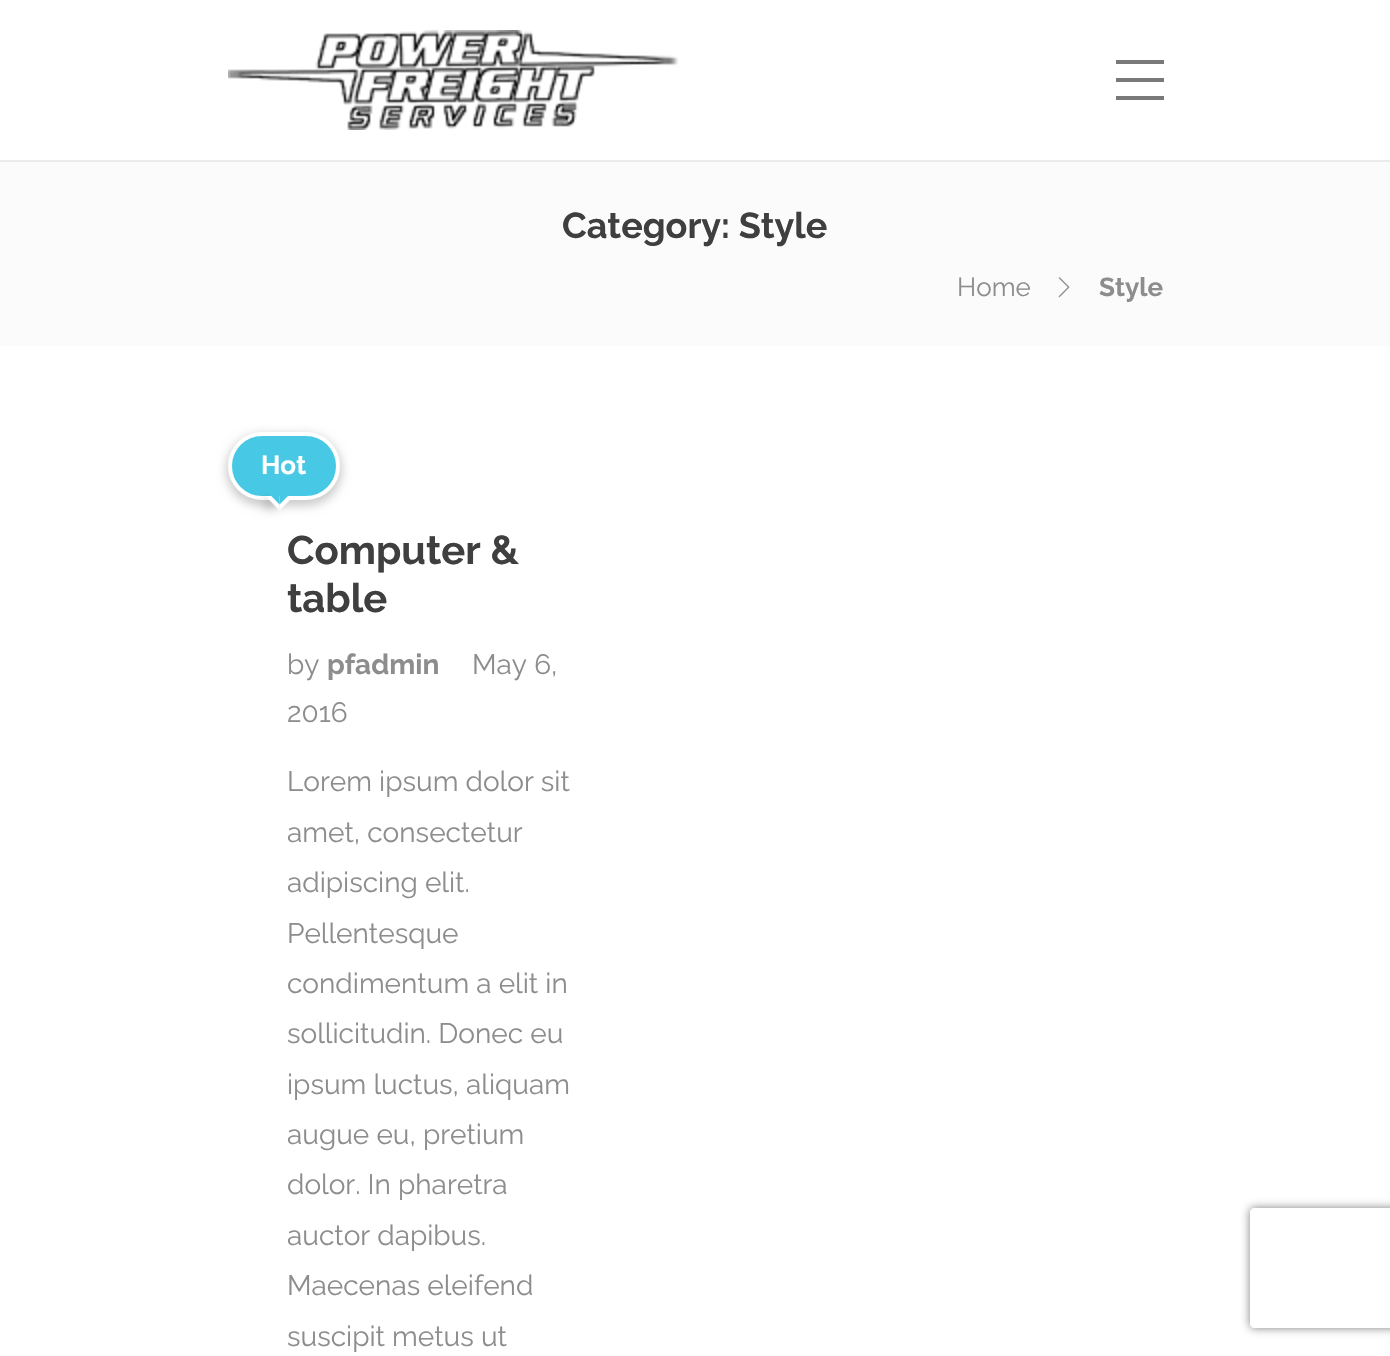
#include "include/core/SkBlurTypes.h"
#include "include/core/SkCanvas.h"
#include "include/core/SkData.h"
#include "include/core/SkFont.h"
#include "include/core/SkFontMgr.h"
#include "include/core/SkImage.h"
#include "include/core/SkMaskFilter.h"
#include "include/core/SkPaint.h"
#include "include/core/SkPathBuilder.h"
#include "include/core/SkTextBlob.h"
#include "include/effects/SkDashPathEffect.h"
#include "include/effects/SkGradientShader.h"
#include "include/utils/SkParsePath.h"

extern sk_sp<SkFontMgr> fontMgr;

void draw(SkCanvas* canvas) {
    SkPaint p;
    p.setAntiAlias(true);
    auto font = [&](const char* family, int weight, float size, bool italic = false) {
        SkFontStyle style(weight, SkFontStyle::kNormal_Width,
            italic ? SkFontStyle::kItalic_Slant : SkFontStyle::kUpright_Slant);
        SkFont result(fontMgr->matchFamilyStyle(family, style), size);
        result.setSubpixel(true);
        return result;
    };
    auto drawPhoto = [&](const char* path, float l, float t, float r, float b) {
        auto image = SkImages::DeferredFromEncodedData(SkData::MakeFromFileName(path));
        canvas->drawImageRect(image, SkRect::MakeLTRB(l, t, r, b), SkSamplingOptions());
    };
    canvas->clear(0xFFFFFFFF);
    p.setColor(0xFFEBEBEB);
    canvas->drawRect(SkRect::MakeLTRB(0, 160, 1390, 162), p);
    drawPhoto("media/1.png", 228, 30, 678, 130);
    {
        const struct { float l, t, r, b; SkColor color; } items[] = {
            {1116, 78, 1164, 82, 0xFF797979},
            {1116, 60, 1164, 64, 0xFF797979},
            {1116, 96, 1164, 100, 0xFF797979},
            {0, 162, 1390, 346, 0xFFFBFBFB},
        };
        for (auto [l, t, r, b, color] : items) {
            p.setColor(color);
            canvas->drawRect(SkRect::MakeLTRB(l, t, r, b), p);
        }
    }
    auto font1 = font("Raleway", 700, 36);
    p.setColor(0xFF3F3F3F);
    canvas->drawString("Category: Style", 562, 238, font1, p);
    auto font2 = font("Raleway", 400, 26);
    p.setColor(0xFF8D8D8D);
    canvas->drawString("Home", 957, 296, font2, p);
    drawPhoto("media/2.png", 1058, 277, 1070, 298);
    auto font3 = font("Raleway", 700, 26);
    canvas->drawString("Style", 1099, 296, font3, p);
    p.setColor(0x33000000);
    p.setMaskFilter(SkMaskFilter::MakeBlur(kNormal_SkBlurStyle, 5));
    canvas->drawRoundRect(SkRect::MakeLTRB(226, 434, 342, 506), 36, 36, p);
    p.setMaskFilter(nullptr);
    p.setColor(0xFF47C9E5);
    canvas->drawRoundRect(SkRect::MakeLTRB(230, 434, 338, 498), 32, 32, p);
    p.setStyle(SkPaint::kStroke_Style);
    p.setStrokeWidth(4);
    p.setColor(0xFFFFFFFF);
    canvas->drawRoundRect(SkRect::MakeLTRB(230, 434, 338, 498), 32, 32, p);
    p.setStyle(SkPaint::kFill_Style);
    canvas->drawString("Hot", 261, 474, font3, p);
    p.setColor(0x26000000);
    p.setMaskFilter(SkMaskFilter::MakeBlur(kNormal_SkBlurStyle, 5));
    canvas->drawRect(SkRect::MakeLTRB(264, 498, 276, 510), p);
    p.setMaskFilter(nullptr);
    p.setColor(0xFFFFFFFF);
    canvas->drawPath(SkPathBuilder().moveTo(294, 496).lineTo(279.5f, 510.5f).lineTo(279.5f, 496).close().detach(), p);
    canvas->drawPath(SkPathBuilder().moveTo(279.5f, 510.5f).lineTo(265.5f, 496).lineTo(279.5f, 496).close().detach(), p);
    p.setColor(0xFF47C9E5);
    canvas->drawPath(SkPathBuilder().moveTo(294, 490).lineTo(279.5f, 504.5f).lineTo(279.5f, 490).close().detach(), p);
    canvas->drawPath(SkPathBuilder().moveTo(279.5f, 504.5f).lineTo(265.5f, 490).lineTo(279.5f, 490).close().detach(), p);
    auto font4 = font("Raleway", 700, 40);
    p.setColor(0xFF3F3F3F);
    canvas->drawString("Computer &", 287, 564, font4, p);
    canvas->drawString("table", 287, 612, font4, p);
    auto font5 = font("Raleway", 400, 28);
    p.setColor(0xFF8D8D8D);
    canvas->drawString("by", 287, 674, font5, p);
    auto font6 = font("Raleway", 700, 28);
    canvas->drawString("pfadmin", 327, 674, font6, p);
    {
        const struct { const char* s; float x, y; } items[] = {
            {"May 6,", 472, 674},
            {"2016", 287, 722},
            {"Lorem ipsum dolor sit", 287, 791},
            {"amet, consectetur", 287, 842},
            {"adipiscing elit.", 287, 892},
            {"Pellentesque", 287, 943},
            {"condimentum a elit in", 287, 993},
            {"sollicitudin. Donec eu", 287, 1043},
            {"ipsum luctus, aliquam", 287, 1094},
            {"augue eu, pretium", 287, 1144},
            {"dolor. In pharetra", 287, 1194},
            {"auctor dapibus.", 287, 1245},
            {"Maecenas eleifend", 287, 1295},
            {"suscipit metus ut", 287, 1346},
        };
        for (auto [s, x, y] : items) {
            canvas->drawString(s, x, y, font5, p);
        }
    }
    canvas->save();
    canvas->clipPath(SkPathBuilder(SkPathFillType::kEvenOdd).moveTo(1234, 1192).lineTo(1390, 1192).lineTo(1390, 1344).lineTo(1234, 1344).close().moveTo(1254, 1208).lineTo(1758, 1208).cubicTo(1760, 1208, 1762, 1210, 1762, 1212).lineTo(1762, 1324).cubicTo(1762, 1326, 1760, 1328, 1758, 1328).lineTo(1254, 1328).cubicTo(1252, 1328, 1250, 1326, 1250, 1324).lineTo(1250, 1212).cubicTo(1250, 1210, 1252, 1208, 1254, 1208).close().detach(), true);
    p.setColor(0xFF808080);
    p.setMaskFilter(SkMaskFilter::MakeBlur(kNormal_SkBlurStyle, 5));
    canvas->drawRoundRect(SkRect::MakeLTRB(1250, 1208, 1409, 1328), 4, 4, p);
    p.setMaskFilter(nullptr);
    canvas->restore();
}
